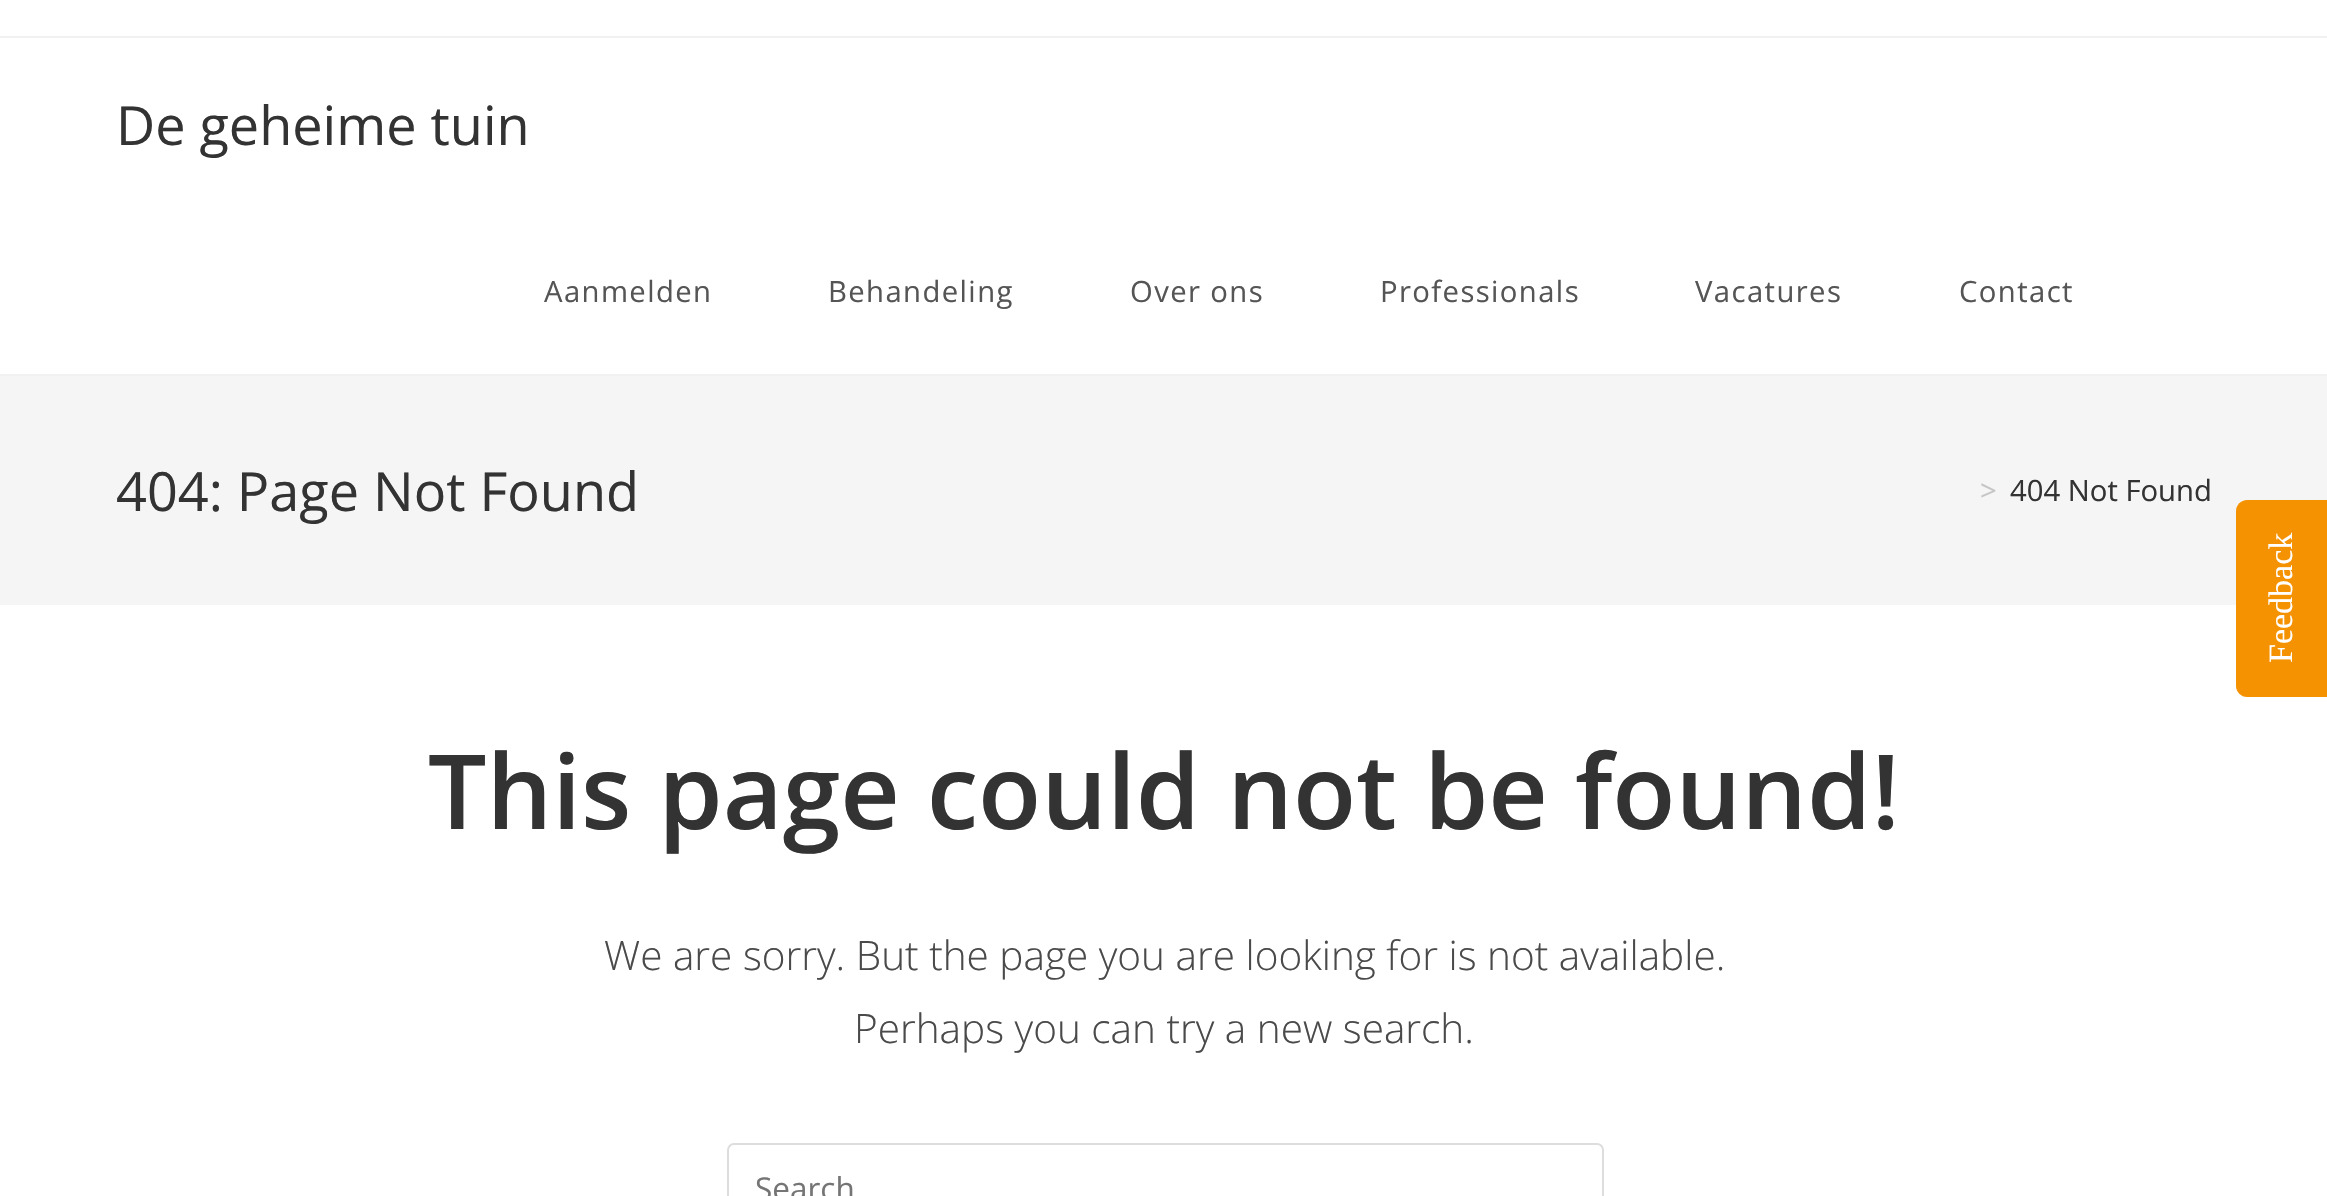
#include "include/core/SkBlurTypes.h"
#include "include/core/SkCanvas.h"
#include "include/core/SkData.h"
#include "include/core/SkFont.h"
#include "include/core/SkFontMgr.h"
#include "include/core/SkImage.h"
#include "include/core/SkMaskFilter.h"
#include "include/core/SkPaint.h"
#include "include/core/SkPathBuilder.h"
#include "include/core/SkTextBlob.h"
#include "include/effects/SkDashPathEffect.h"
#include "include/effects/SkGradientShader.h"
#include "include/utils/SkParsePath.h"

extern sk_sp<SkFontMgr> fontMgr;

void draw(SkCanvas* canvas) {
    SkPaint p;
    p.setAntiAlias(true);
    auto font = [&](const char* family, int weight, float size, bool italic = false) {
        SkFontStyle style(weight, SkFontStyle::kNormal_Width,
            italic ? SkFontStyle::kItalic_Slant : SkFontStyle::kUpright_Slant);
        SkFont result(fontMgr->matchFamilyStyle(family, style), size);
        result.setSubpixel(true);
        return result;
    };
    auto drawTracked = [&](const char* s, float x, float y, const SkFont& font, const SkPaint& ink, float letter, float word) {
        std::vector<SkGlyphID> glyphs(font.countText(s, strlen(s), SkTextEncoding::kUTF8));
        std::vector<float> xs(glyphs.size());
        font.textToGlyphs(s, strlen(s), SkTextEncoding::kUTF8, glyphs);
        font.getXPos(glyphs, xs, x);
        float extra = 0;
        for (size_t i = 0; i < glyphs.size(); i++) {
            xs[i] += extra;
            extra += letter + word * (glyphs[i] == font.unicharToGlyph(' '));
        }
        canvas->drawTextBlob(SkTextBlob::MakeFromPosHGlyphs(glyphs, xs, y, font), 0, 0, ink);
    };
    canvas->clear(0xFFFFFFFF);
    p.setColor(0xFFF1F1F1);
    canvas->drawRect(SkRect::MakeLTRB(0, 36, 2327, 38), p);
    canvas->drawRect(SkRect::MakeLTRB(0, 374, 2327, 376), p);
    auto font1 = font("Open Sans", 400, 54);
    p.setColor(0xFF333333);
    canvas->drawString("De geheime tuin", 116, 145, font1, p);
    auto font2 = font("Open Sans", 400, 29.25f);
    p.setColor(0xFF555555);
    {
        const struct { const char* s; float x, y; } items[] = {
            {"Aanmelden", 544, 302},
            {"Behandeling", 828, 302},
            {"Over ons", 1130, 302},
            {"Professionals", 1380, 302},
            {"Vacatures", 1695, 302},
            {"Contact", 1959, 302},
        };
        for (auto [s, x, y] : items) {
            drawTracked(s, x, y, font2, p, 1.4f, 0);
        }
    }
    p.setColor(0xFFF5F5F5);
    canvas->drawRect(SkRect::MakeLTRB(0, 376, 2327, 605), p);
    p.setColor(0xFF333333);
    canvas->drawString("404: Page Not Found", 116, 511, font1, p);
    p.setColor(0xFFC6C6C6);
    canvas->drawString(">", 1980, 501, font2, p);
    p.setColor(0xFF333333);
    canvas->drawString("404 Not Found", 2010, 501, font2, p);
    auto font3 = font("Open Sans", 600, 103.5f);
    canvas->drawString("This page could not be found!", 428, 829, font3, p);
    auto font4 = font("Open Sans", 300, 40.5f);
    p.setColor(0xFF4A4A4A);
    canvas->drawString("We are sorry. But the page you are looking for is not available.", 604, 970, font4, p);
    canvas->drawString("Perhaps you can try a new search.", 854, 1043, font4, p);
    p.setStyle(SkPaint::kStroke_Style);
    p.setStrokeWidth(2);
    p.setColor(0xFFDDDDDD);
    canvas->drawRoundRect(SkRect::MakeLTRB(728, 1144, 1603, 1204), 6, 6, p);
    auto font5 = font("Open Sans", 400, 31.5f);
    p.setStyle(SkPaint::kFill_Style);
    p.setColor(0xFF757575);
    canvas->drawString("Search", 755, 1200, font5, p);
    p.setColor(0xFFF59202);
    canvas->drawPath(SkPathBuilder().moveTo(2236, 686).lineTo(2236, 511).cubicTo(2236, 505, 2241, 500, 2247, 500).lineTo(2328, 500).lineTo(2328, 697).lineTo(2247, 697).cubicTo(2241, 697, 2236, 692, 2236, 686).close().detach(), p);
    auto font6 = font("Liberation Serif", 400, 34);
    p.setColor(0xFFFFFFFF);
    canvas->save();
    canvas->rotate(-90, 2292, 663);
    canvas->drawString("Feedback", 2292, 663, font6, p);
    canvas->restore();
}
